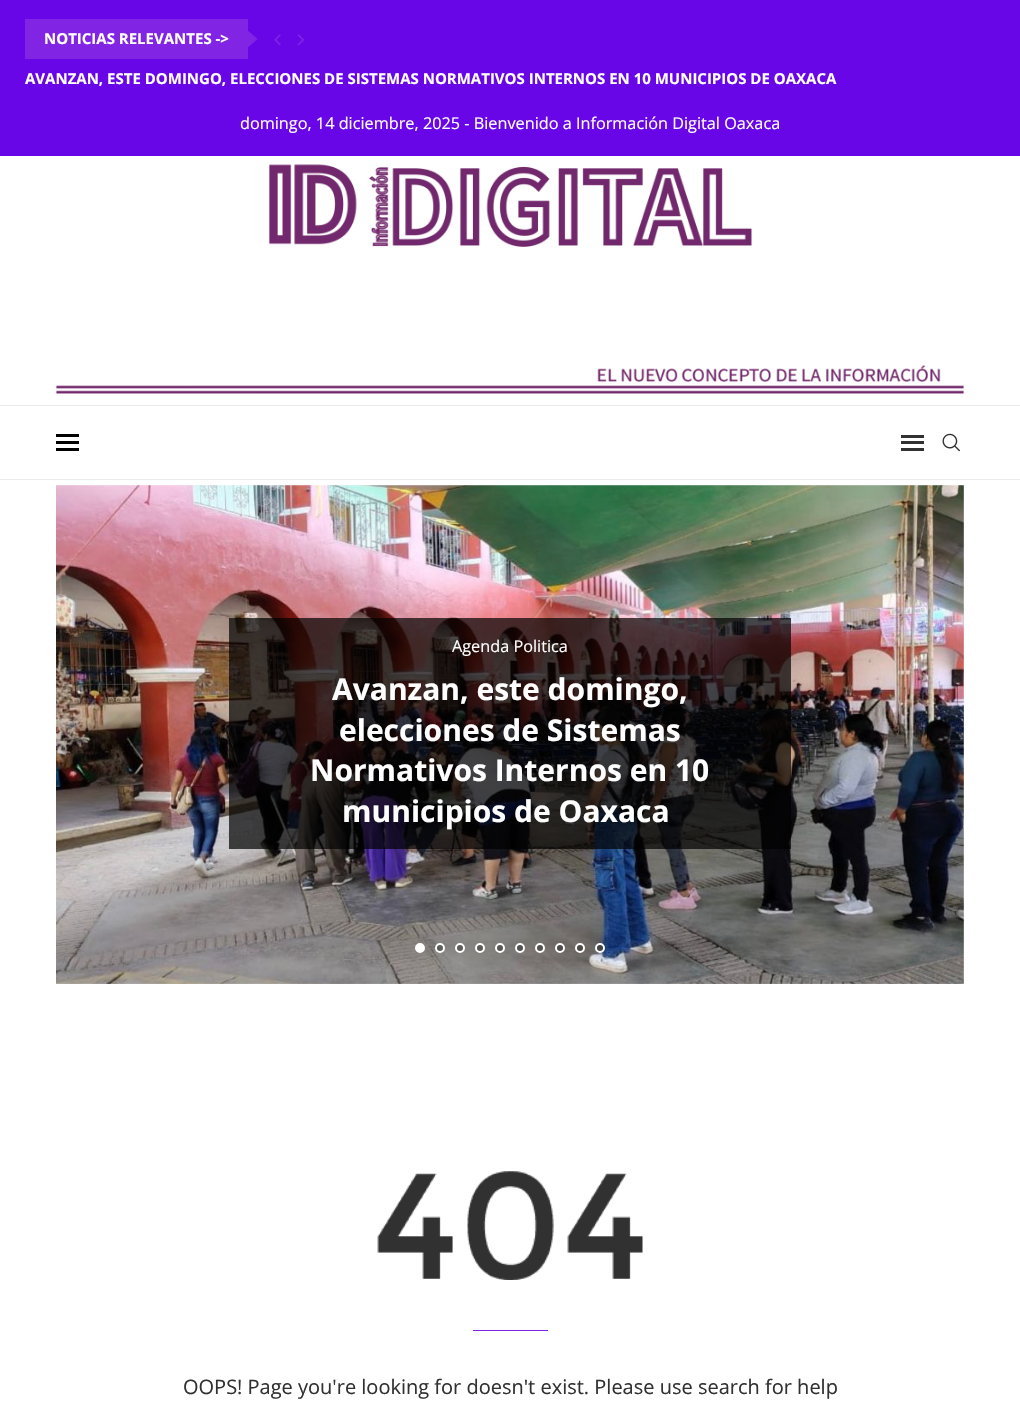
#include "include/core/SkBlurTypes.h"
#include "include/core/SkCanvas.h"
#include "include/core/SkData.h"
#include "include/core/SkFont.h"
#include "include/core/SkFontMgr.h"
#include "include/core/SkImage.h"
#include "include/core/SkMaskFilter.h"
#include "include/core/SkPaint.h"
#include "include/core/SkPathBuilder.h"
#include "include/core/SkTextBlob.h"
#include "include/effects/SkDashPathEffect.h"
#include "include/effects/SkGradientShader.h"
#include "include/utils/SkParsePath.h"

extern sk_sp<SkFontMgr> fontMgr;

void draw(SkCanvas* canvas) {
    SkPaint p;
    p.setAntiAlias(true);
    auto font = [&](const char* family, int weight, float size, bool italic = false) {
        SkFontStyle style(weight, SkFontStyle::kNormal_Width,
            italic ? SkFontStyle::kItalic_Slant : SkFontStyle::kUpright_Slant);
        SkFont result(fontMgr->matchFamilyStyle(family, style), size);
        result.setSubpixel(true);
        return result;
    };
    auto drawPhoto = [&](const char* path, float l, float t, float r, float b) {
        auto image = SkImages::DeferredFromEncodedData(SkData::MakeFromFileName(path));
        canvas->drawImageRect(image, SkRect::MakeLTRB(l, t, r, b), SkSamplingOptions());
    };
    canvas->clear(0xFFFFFFFF);
    p.setColor(0xFF6806E8);
    canvas->drawRect(SkRect::MakeLTRB(0, 0, 1020, 156), p);
    p.setColor(0xFF8224E3);
    canvas->drawRect(SkRect::MakeLTRB(25, 19, 248, 59), p);
    auto font1 = font("Open Sans", 700, 15);
    p.setColor(0xFFFFFFFF);
    canvas->drawString("NOTICIAS RELEVANTES ->", 44, 44, font1, p);
    p.setColor(0xFF8224E3);
    canvas->drawPath(SkPathBuilder().moveTo(246, 49).lineTo(246, 29).lineTo(257.5f, 39).close().detach(), p);
    drawPhoto("media/1.png", 274, 34, 281, 46);
    drawPhoto("media/2.png", 297, 34, 304, 46);
    p.setColor(0xFFFFFFFF);
    canvas->drawString("AVANZAN, ESTE DOMINGO, ELECCIONES DE SISTEMAS NORMATIVOS INTERNOS EN 10 MUNICIPIOS DE OAXACA", 25, 84, font1, p);
    auto font2 = font("Open Sans", 400, 16.25f);
    canvas->drawString("domingo, 14 diciembre, 2025 - Bienvenido a Información Digital Oaxaca", 240, 129, font2, p);
    drawPhoto("media/3.png", 269, 164, 752, 247);
    drawPhoto("media/4.png", 56, 364, 964, 394);
    {
        const struct { float l, t, r, b; SkColor color; } items[] = {
            {0, 405, 1020, 406, 0xFFECECEC},
            {0, 479, 1020, 480, 0xFFECECEC},
            {56, 434, 79, 437, 0xFF000000},
            {56, 441, 79, 444, 0xFF000000},
            {56, 448, 79, 451, 0xFF000000},
            {901, 435, 924, 438, 0xFF313131},
            {901, 448, 924, 451, 0xFF313131},
            {901, 441, 924, 444, 0xFF313131},
        };
        for (auto [l, t, r, b, color] : items) {
            p.setColor(color);
            canvas->drawRect(SkRect::MakeLTRB(l, t, r, b), p);
        }
    }
    drawPhoto("media/5.png", 942, 433, 960, 452);
    p.setColor(0xFFF5F5F5);
    canvas->drawRect(SkRect::MakeLTRB(56, 485, 964, 984), p);
    drawPhoto("media/6.png", 56, 485, 964, 984);
    p.setColor(0xB3000000);
    canvas->drawRect(SkRect::MakeLTRB(229, 618, 791, 849), p);
    p.setColor(0xFFFFFFFF);
    canvas->drawString("Agenda Politica", 452, 652, font2, p);
    auto font3 = font("Open Sans", 700, 30);
    {
        const struct { const char* s; float x, y; } items[] = {
            {"Avanzan, este domingo,", 332, 700},
            {"elecciones de Sistemas", 339, 741},
            {"Normativos Internos en 10", 310, 781},
            {"municipios de Oaxaca", 342, 822},
        };
        for (auto [s, x, y] : items) {
            canvas->drawString(s, x, y, font3, p);
        }
    }
    canvas->drawCircle(420, 948, 4, p);
    p.setStyle(SkPaint::kStroke_Style);
    p.setStrokeWidth(2);
    canvas->drawCircle(420, 948, 4, p);
    p.setStyle(SkPaint::kFill_Style);
    p.setColor(0x4D000000);
    canvas->drawCircle(440, 948, 4, p);
    p.setStyle(SkPaint::kStroke_Style);
    p.setColor(0xFFFFFFFF);
    canvas->drawCircle(440, 948, 4, p);
    p.setStyle(SkPaint::kFill_Style);
    p.setColor(0x4D000000);
    canvas->drawCircle(460, 948, 4, p);
    p.setStyle(SkPaint::kStroke_Style);
    p.setColor(0xFFFFFFFF);
    canvas->drawCircle(460, 948, 4, p);
    p.setStyle(SkPaint::kFill_Style);
    p.setColor(0x4D000000);
    canvas->drawCircle(480, 948, 4, p);
    p.setStyle(SkPaint::kStroke_Style);
    p.setColor(0xFFFFFFFF);
    canvas->drawCircle(480, 948, 4, p);
    p.setStyle(SkPaint::kFill_Style);
    p.setColor(0x4D000000);
    canvas->drawCircle(500, 948, 4, p);
    p.setStyle(SkPaint::kStroke_Style);
    p.setColor(0xFFFFFFFF);
    canvas->drawCircle(500, 948, 4, p);
    p.setStyle(SkPaint::kFill_Style);
    p.setColor(0x4D000000);
    canvas->drawCircle(520, 948, 4, p);
    p.setStyle(SkPaint::kStroke_Style);
    p.setColor(0xFFFFFFFF);
    canvas->drawCircle(520, 948, 4, p);
    p.setStyle(SkPaint::kFill_Style);
    p.setColor(0x4D000000);
    canvas->drawCircle(540, 948, 4, p);
    p.setStyle(SkPaint::kStroke_Style);
    p.setColor(0xFFFFFFFF);
    canvas->drawCircle(540, 948, 4, p);
    p.setStyle(SkPaint::kFill_Style);
    p.setColor(0x4D000000);
    canvas->drawCircle(560, 948, 4, p);
    p.setStyle(SkPaint::kStroke_Style);
    p.setColor(0xFFFFFFFF);
    canvas->drawCircle(560, 948, 4, p);
    p.setStyle(SkPaint::kFill_Style);
    p.setColor(0x4D000000);
    canvas->drawCircle(580, 948, 4, p);
    p.setStyle(SkPaint::kStroke_Style);
    p.setColor(0xFFFFFFFF);
    canvas->drawCircle(580, 948, 4, p);
    p.setStyle(SkPaint::kFill_Style);
    p.setColor(0x4D000000);
    canvas->drawCircle(600, 948, 4, p);
    p.setStyle(SkPaint::kStroke_Style);
    p.setColor(0xFFFFFFFF);
    canvas->drawCircle(600, 948, 4, p);
    drawPhoto("media/7.png", 377, 1171, 643, 1280);
    p.setStyle(SkPaint::kFill_Style);
    p.setColor(0xFF8224E3);
    canvas->drawRect(SkRect::MakeLTRB(473, 1330, 548, 1331), p);
    auto font4 = font("Open Sans", 400, 20);
    p.setColor(0xFF313131);
    canvas->drawString("OOPS! Page you're looking for doesn't exist. Please use search for help", 183, 1394, font4, p);
}
